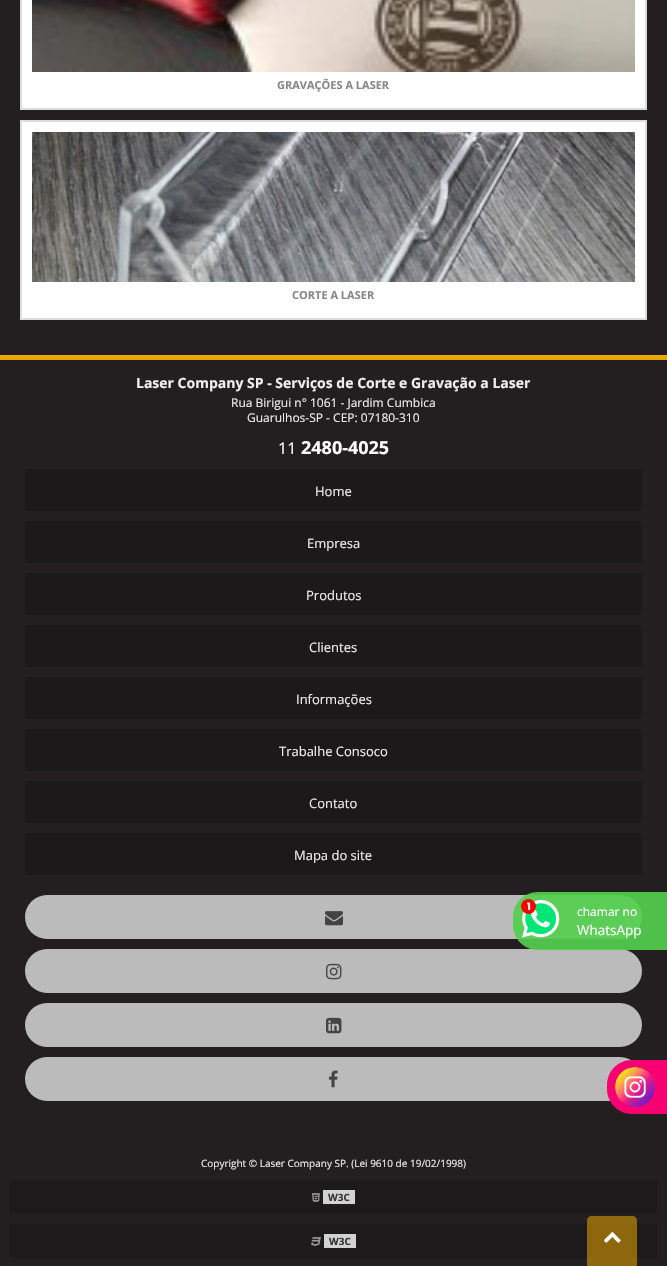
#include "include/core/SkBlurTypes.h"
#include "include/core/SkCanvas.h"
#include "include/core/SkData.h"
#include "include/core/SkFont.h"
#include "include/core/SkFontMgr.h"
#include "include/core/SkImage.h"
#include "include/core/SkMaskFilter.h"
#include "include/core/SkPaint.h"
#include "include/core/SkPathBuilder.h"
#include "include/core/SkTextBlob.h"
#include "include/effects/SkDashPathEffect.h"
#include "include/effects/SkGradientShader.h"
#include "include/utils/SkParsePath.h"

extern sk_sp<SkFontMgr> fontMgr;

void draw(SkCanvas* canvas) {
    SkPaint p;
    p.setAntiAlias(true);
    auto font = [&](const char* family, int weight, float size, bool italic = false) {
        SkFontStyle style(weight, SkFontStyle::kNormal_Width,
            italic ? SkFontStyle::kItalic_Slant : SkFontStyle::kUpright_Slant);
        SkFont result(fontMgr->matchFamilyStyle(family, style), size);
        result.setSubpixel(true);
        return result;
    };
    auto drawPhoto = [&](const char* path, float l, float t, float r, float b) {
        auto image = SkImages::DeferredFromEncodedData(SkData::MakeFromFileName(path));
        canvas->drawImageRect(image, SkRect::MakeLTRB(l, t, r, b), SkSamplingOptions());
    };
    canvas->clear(0xFF231F20);
    p.setColor(0xFFFFFFFF);
    canvas->drawRect(SkRect::MakeLTRB(21, -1, 646, 109), p);
    p.setStyle(SkPaint::kStroke_Style);
    p.setStrokeWidth(2);
    p.setColor(0xFFDDDDDD);
    canvas->drawRect(SkRect::MakeLTRB(21, -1, 646, 109), p);
    drawPhoto("media/1.png", 32, 0, 635, 72);
    auto font1 = font("Open Sans", 700, 11);
    p.setStyle(SkPaint::kFill_Style);
    p.setColor(0xFF888888);
    canvas->drawString("GRAVAÇÕES A LASER", 277, 89, font1, p);
    p.setColor(0xFFFFFFFF);
    canvas->drawRect(SkRect::MakeLTRB(21, 121, 646, 319), p);
    p.setStyle(SkPaint::kStroke_Style);
    p.setColor(0xFFDDDDDD);
    canvas->drawRect(SkRect::MakeLTRB(21, 121, 646, 319), p);
    drawPhoto("media/2.png", 32, 132, 635, 282);
    p.setStyle(SkPaint::kFill_Style);
    p.setColor(0xFF888888);
    canvas->drawString("CORTE A LASER", 292, 299, font1, p);
    p.setColor(0xFFEBA701);
    canvas->drawRect(SkRect::MakeLTRB(0, 355, 667, 360), p);
    auto font2 = font("Open Sans", 700, 14);
    p.setColor(0xFFEEEEEE);
    canvas->drawString("Laser Company SP - Serviços de Corte e Gravação a Laser", 136, 388, font2, p);
    auto font3 = font("Open Sans", 400, 12);
    canvas->drawString("Rua Birigui n° 1061 - Jardim Cumbica", 231, 407, font3, p);
    canvas->drawString("Guarulhos-SP - CEP: 07180-310", 247, 422, font3, p);
    auto font4 = font("Open Sans", 400, 16);
    p.setColor(0xFFFFFFFF);
    canvas->drawString("11", 278, 454, font4, p);
    auto font5 = font("Open Sans", 700, 18);
    canvas->drawString("2480-4025", 301, 454, font5, p);
    p.setColor(0xFF1C191A);
    canvas->drawRect(SkRect::MakeLTRB(25, 469, 642, 511), p);
    auto font6 = font("Open Sans", 400, 13);
    p.setColor(0xFFEEEEEE);
    canvas->drawString("Home", 315, 496, font6, p);
    p.setColor(0xFF1C191A);
    canvas->drawRect(SkRect::MakeLTRB(25, 521, 642, 563), p);
    p.setColor(0xFFEEEEEE);
    canvas->drawString("Empresa", 307, 548, font6, p);
    p.setColor(0xFF1C191A);
    canvas->drawRect(SkRect::MakeLTRB(25, 573, 642, 615), p);
    p.setColor(0xFFEEEEEE);
    canvas->drawString("Produtos", 306, 600, font6, p);
    p.setColor(0xFF1C191A);
    canvas->drawRect(SkRect::MakeLTRB(25, 625, 642, 667), p);
    p.setColor(0xFFEEEEEE);
    canvas->drawString("Clientes", 309, 652, font6, p);
    p.setColor(0xFF1C191A);
    canvas->drawRect(SkRect::MakeLTRB(25, 677, 642, 719), p);
    p.setColor(0xFFEEEEEE);
    canvas->drawString("Informações", 296, 704, font6, p);
    p.setColor(0xFF1C191A);
    canvas->drawRect(SkRect::MakeLTRB(25, 729, 642, 771), p);
    p.setColor(0xFFEEEEEE);
    canvas->drawString("Trabalhe Consoco", 279, 756, font6, p);
    p.setColor(0xFF1C191A);
    canvas->drawRect(SkRect::MakeLTRB(25, 781, 642, 823), p);
    p.setColor(0xFFEEEEEE);
    canvas->drawString("Contato", 309, 808, font6, p);
    p.setColor(0xFF1C191A);
    canvas->drawRect(SkRect::MakeLTRB(25, 833, 642, 875), p);
    p.setColor(0xFFEEEEEE);
    canvas->drawString("Mapa do site", 294, 860, font6, p);
    p.setColor(0xFFBBBBBB);
    canvas->drawRoundRect(SkRect::MakeLTRB(25, 895, 642, 939), 22, 22, p);
    drawPhoto("media/3.png", 325, 911, 343, 926);
    canvas->drawRoundRect(SkRect::MakeLTRB(25, 949, 642, 993), 22, 22, p);
    drawPhoto("media/4.png", 326, 963, 342, 980);
    canvas->drawRoundRect(SkRect::MakeLTRB(25, 1003, 642, 1047), 22, 22, p);
    drawPhoto("media/5.png", 326, 1017, 342, 1034);
    canvas->drawRoundRect(SkRect::MakeLTRB(25, 1057, 642, 1101), 22, 22, p);
    drawPhoto("media/6.png", 328, 1070, 338, 1088);
    p.setColor(0xE852D04D);
    canvas->drawPath(SkPathBuilder().moveTo(538, 892).lineTo(667, 892).lineTo(667, 950).lineTo(538, 950).cubicTo(524, 950, 513, 939, 513, 925).lineTo(513, 917).cubicTo(513, 903, 524, 892, 538, 892).close().detach(), p);
    drawPhoto("media/7.png", 522, 900, 560, 938);
    p.setColor(0xFFFF0000);
    canvas->drawCircle(528.5f, 906.5f, 7.5f, p);
    auto font7 = font("Poppins", 700, 10);
    p.setColor(0xFFFFFFFF);
    canvas->drawString("1", 527, 910, font7, p);
    canvas->drawString("chamar no", 577, 916, font3, p);
    auto font8 = font("Open Sans", 400, 13.5f);
    canvas->drawString("WhatsApp", 577, 935, font8, p);
    p.setColor(0xFFF70071);
    canvas->drawPath(SkPathBuilder().moveTo(632, 1060).lineTo(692, 1060).lineTo(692, 1114).lineTo(632, 1114).cubicTo(618, 1114, 607, 1103, 607, 1089).lineTo(607, 1085).cubicTo(607, 1071, 618, 1060, 632, 1060).close().detach(), p);
    drawPhoto("media/8.png", 615, 1067, 655, 1107);
    auto font9 = font("Open Sans", 400, 10);
    p.setColor(0xFFEEEEEE);
    canvas->drawString("Copyright © Laser Company SP. (Lei 9610 de 19/02/1998)", 201, 1167, font9, p);
    p.setColor(0xFF1D1A1B);
    canvas->drawRect(SkRect::MakeLTRB(10, 1180, 657, 1214), p);
    drawPhoto("media/9.png", 312, 1193, 320, 1202);
    p.setColor(0xFFD3D2D2);
    canvas->drawRect(SkRect::MakeLTRB(323, 1190, 355, 1204), p);
    auto font10 = font("Open Sans", 700, 10);
    p.setColor(0xFF323532);
    canvas->drawString("W3C", 328, 1201, font10, p);
    p.setColor(0xFF1D1A1B);
    canvas->drawRect(SkRect::MakeLTRB(10, 1224, 657, 1258), p);
    drawPhoto("media/10.png", 311, 1237, 321, 1246);
    p.setColor(0xFFD3D2D2);
    canvas->drawRect(SkRect::MakeLTRB(324, 1234, 356, 1248), p);
    p.setColor(0xFF323532);
    canvas->drawString("W3C", 329, 1245, font10, p);
    p.setColor(0x8AEBA701);
    canvas->drawPath(SkPathBuilder().moveTo(592, 1216).lineTo(632, 1216).cubicTo(635, 1216, 637, 1218, 637, 1221).lineTo(637, 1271).lineTo(587, 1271).lineTo(587, 1221).cubicTo(587, 1218, 589, 1216, 592, 1216).close().detach(), p);
    drawPhoto("media/11.png", 604, 1232, 621, 1243);
}
